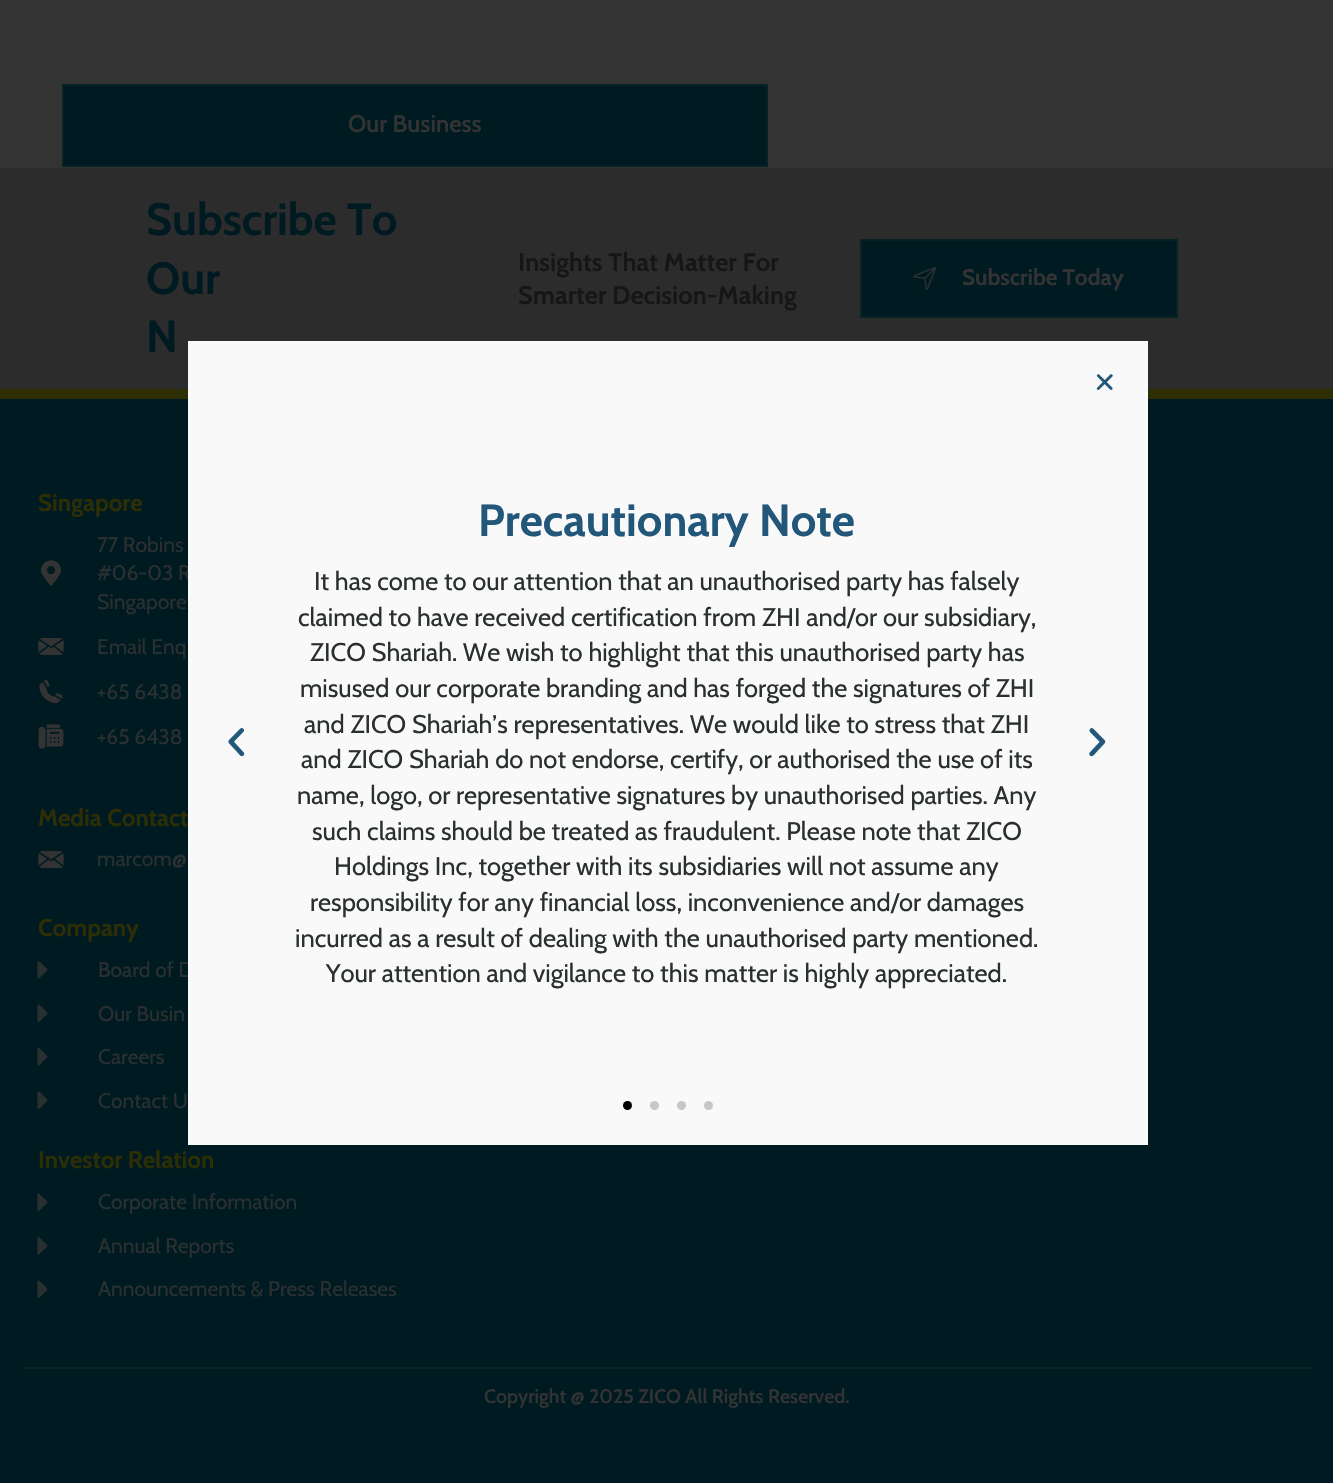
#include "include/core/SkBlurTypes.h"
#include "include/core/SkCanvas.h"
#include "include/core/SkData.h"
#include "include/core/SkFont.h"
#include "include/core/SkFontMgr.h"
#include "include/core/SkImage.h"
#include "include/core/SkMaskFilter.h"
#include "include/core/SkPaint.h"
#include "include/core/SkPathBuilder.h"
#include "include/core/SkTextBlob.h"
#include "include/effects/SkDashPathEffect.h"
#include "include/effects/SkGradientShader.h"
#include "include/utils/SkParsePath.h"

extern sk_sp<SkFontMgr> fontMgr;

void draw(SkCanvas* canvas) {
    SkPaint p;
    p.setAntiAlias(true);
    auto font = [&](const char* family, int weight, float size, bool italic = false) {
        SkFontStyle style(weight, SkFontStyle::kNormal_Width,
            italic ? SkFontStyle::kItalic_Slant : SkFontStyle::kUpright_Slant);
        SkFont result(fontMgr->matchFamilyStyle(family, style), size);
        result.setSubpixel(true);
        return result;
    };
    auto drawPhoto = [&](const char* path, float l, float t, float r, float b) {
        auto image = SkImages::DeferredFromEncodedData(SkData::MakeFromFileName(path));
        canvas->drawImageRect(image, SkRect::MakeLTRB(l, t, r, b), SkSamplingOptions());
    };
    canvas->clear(0xFF333333);
    p.setColor(0xFF001A22);
    canvas->drawRect(SkRect::MakeLTRB(63, 85, 767, 166), p);
    p.setStyle(SkPaint::kStroke_Style);
    p.setStrokeWidth(2);
    p.setColor(0xFF052225);
    canvas->drawRect(SkRect::MakeLTRB(63, 85, 767, 166), p);
    auto font1 = font("Cabin", 600, 24);
    p.setStyle(SkPaint::kFill_Style);
    p.setColor(0xFF333333);
    canvas->drawString("Our Business", 348, 132, font1, p);
    p.setColor(0xFF2C2C2C);
    canvas->drawRect(SkRect::MakeLTRB(0, 168, 1333, 389), p);
    auto font2 = font("Cabin", 700, 45);
    p.setColor(0xFF001A22);
    {
        const struct { const char* s; float x, y; } items[] = {
            {"Subscribe To", 146, 235},
            {"Our", 146, 294},
            {"N", 146, 352},
        };
        for (auto [s, x, y] : items) {
            canvas->drawString(s, x, y, font2, p);
        }
    }
    auto font3 = font("Cabin", 700, 25.5f);
    p.setColor(0xFF161616);
    canvas->drawString("Insights That Matter For", 518, 271, font3, p);
    canvas->drawString("Smarter Decision-Making", 518, 304, font3, p);
    p.setColor(0xFF001A22);
    canvas->drawRect(SkRect::MakeLTRB(861, 240, 1177, 317), p);
    p.setStyle(SkPaint::kStroke_Style);
    p.setColor(0xFF052225);
    canvas->drawRect(SkRect::MakeLTRB(861, 240, 1177, 317), p);
    drawPhoto("media/1.png", 913, 267, 936, 290);
    auto font4 = font("Cabin", 700, 22.5f);
    p.setStyle(SkPaint::kFill_Style);
    p.setColor(0xFF333333);
    canvas->drawString("Subscribe Today", 962, 285, font4, p);
    p.setColor(0xFF001A22);
    canvas->drawRect(SkRect::MakeLTRB(0, 399, 1333, 1483), p);
    p.setColor(0xFF2E2E04);
    canvas->drawRect(SkRect::MakeLTRB(0, 389, 1333, 399), p);
    auto font5 = font("Cabin", 700, 24);
    canvas->drawString("Singapore", 38, 511, font5, p);
    drawPhoto("media/2.png", 41, 560, 61, 586);
    auto font6 = font("Cabin", 400, 21);
    p.setColor(0xFF2A2F30);
    {
        const struct { const char* s; float x, y; } items[] = {
            {"77 Robins", 97, 552},
            {"#06-03 R", 97, 580},
            {"Singapore", 97, 609},
        };
        for (auto [s, x, y] : items) {
            canvas->drawString(s, x, y, font6, p);
        }
    }
    drawPhoto("media/3.png", 38, 638, 64, 655);
    canvas->drawString("Email Enq", 97, 654, font6, p);
    drawPhoto("media/4.png", 39, 679, 63, 704);
    canvas->drawString("+65 6438", 97, 699, font6, p);
    drawPhoto("media/5.png", 38, 724, 64, 749);
    canvas->drawString("+65 6438", 97, 744, font6, p);
    p.setColor(0xFF2E2E04);
    canvas->drawString("Media Contact", 38, 826, font5, p);
    drawPhoto("media/3.png", 38, 851, 64, 868);
    p.setColor(0xFF2A2F30);
    canvas->drawString("marcom@", 97, 866, font6, p);
    p.setColor(0xFF2E2E04);
    canvas->drawString("Company", 38, 936, font5, p);
    drawPhoto("media/6.png", 37, 961, 48, 979);
    p.setColor(0xFF2A2F30);
    canvas->drawString("Board of D", 98, 977, font6, p);
    drawPhoto("media/7.png", 37, 1004, 48, 1022);
    canvas->drawString("Our Busin", 98, 1021, font6, p);
    drawPhoto("media/6.png", 37, 1048, 48, 1066);
    canvas->drawString("Careers", 98, 1064, font6, p);
    drawPhoto("media/7.png", 37, 1091, 48, 1109);
    canvas->drawString("Contact U", 98, 1108, font6, p);
    p.setColor(0xFF2E2E04);
    canvas->drawString("Investor Relation", 38, 1168, font5, p);
    drawPhoto("media/7.png", 37, 1193, 48, 1211);
    p.setColor(0xFF2A2F30);
    canvas->drawString("Corporate Information", 98, 1209, font6, p);
    drawPhoto("media/6.png", 37, 1237, 48, 1255);
    canvas->drawString("Annual Reports", 98, 1253, font6, p);
    drawPhoto("media/7.png", 37, 1280, 48, 1298);
    canvas->drawString("Announcements & Press Releases", 98, 1296, font6, p);
    p.setColor(0xFF0E2127);
    canvas->drawRect(SkRect::MakeLTRB(23, 1367, 1311, 1369), p);
    auto font7 = font("Cabin", 600, 19.5f);
    p.setColor(0xFF333333);
    canvas->drawString("Copyright @ 2025 ZICO All Rights Reserved.", 484, 1403, font7, p);
    p.setColor(0xFFF9F9F9);
    canvas->drawRect(SkRect::MakeLTRB(188, 341, 1148, 1145), p);
    drawPhoto("media/8.png", 1096, 374, 1113, 390);
    drawPhoto("media/9.png", 228, 728, 245, 757);
    p.setColor(0xFF22577A);
    canvas->drawString("Precautionary Note", 478, 536, font2, p);
    auto font8 = font("Cabin", 400, 25.5f);
    p.setColor(0xFF2A2F30);
    {
        const struct { const char* s; float x, y; } items[] = {
            {"It has come to our attention that an unauthorised party has falsely", 314, 590},
            {"claimed to have received certification from ZHI and/or our subsidiary,", 298, 626},
            {"ZICO Shariah. We wish to highlight that this unauthorised party has", 310, 661},
            {"misused our corporate branding and has forged the signatures of ZHI", 300, 697},
            {"and ZICO Shariah’s representatives. We would like to stress that ZHI", 304, 733},
            {"and ZICO Shariah do not endorse, certify, or authorised the use of its", 301, 768},
            {"name, logo, or representative signatures by unauthorised parties. Any", 297, 804},
            {"such claims should be treated as fraudulent. Please note that ZICO", 312, 840},
            {"Holdings Inc, together with its subsidiaries will not assume any", 334, 875},
            {"responsibility for any financial loss, inconvenience and/or damages", 310, 911},
            {"incurred as a result of dealing with the unauthorised party mentioned.", 295, 947},
            {"Your attention and vigilance to this matter is highly appreciated.", 326, 982},
        };
        for (auto [s, x, y] : items) {
            canvas->drawString(s, x, y, font8, p);
        }
    }
    drawPhoto("media/10.png", 1089, 728, 1106, 757);
    p.setColor(0xFF000000);
    canvas->drawCircle(627.5f, 1105.5f, 4.5f, p);
    p.setColor(0xFFC7C7C7);
    canvas->drawCircle(654.5f, 1105.5f, 4.5f, p);
    canvas->drawCircle(681.5f, 1105.5f, 4.5f, p);
    canvas->drawCircle(708.5f, 1105.5f, 4.5f, p);
}
